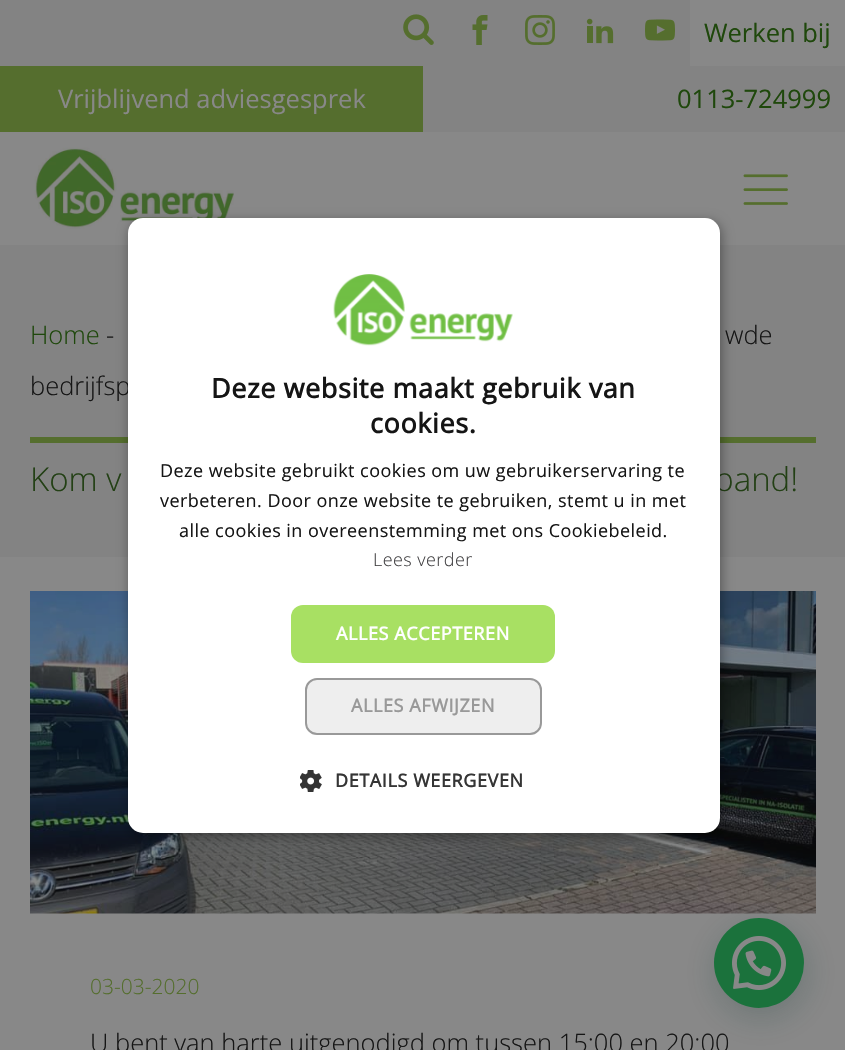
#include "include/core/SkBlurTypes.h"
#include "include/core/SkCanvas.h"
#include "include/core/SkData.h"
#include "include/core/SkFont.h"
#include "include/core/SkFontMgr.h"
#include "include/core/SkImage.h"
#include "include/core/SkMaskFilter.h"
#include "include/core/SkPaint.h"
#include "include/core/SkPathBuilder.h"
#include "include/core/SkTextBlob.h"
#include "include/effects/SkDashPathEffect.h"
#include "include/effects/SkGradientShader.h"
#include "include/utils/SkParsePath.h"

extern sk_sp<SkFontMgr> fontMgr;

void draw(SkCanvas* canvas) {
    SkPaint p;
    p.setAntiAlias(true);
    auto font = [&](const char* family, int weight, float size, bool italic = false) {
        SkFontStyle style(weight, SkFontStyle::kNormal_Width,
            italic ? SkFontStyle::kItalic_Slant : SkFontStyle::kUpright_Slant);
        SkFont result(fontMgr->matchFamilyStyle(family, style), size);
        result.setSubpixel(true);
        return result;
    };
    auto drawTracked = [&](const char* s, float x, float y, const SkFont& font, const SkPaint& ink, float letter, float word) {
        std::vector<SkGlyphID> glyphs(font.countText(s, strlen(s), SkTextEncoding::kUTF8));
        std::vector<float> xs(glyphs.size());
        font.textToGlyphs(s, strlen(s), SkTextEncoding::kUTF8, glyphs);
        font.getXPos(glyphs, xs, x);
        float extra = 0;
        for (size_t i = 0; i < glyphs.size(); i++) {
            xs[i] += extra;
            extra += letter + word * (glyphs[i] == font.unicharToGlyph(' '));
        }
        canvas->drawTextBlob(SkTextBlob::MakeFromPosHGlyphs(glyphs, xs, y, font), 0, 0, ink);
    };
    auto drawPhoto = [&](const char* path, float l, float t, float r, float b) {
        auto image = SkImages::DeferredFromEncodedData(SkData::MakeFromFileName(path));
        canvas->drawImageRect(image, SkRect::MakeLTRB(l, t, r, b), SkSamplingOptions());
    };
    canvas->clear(0xFF888888);
    p.setColor(0xFF838383);
    canvas->drawRect(SkRect::MakeLTRB(0, 0, 845, 132), p);
    drawPhoto("media/1.png", 403, 14, 434, 45);
    drawPhoto("media/2.png", 472, 15, 488, 45);
    drawPhoto("media/3.png", 525, 15, 555, 45);
    drawPhoto("media/4.png", 586, 18, 614, 44);
    drawPhoto("media/5.png", 645, 19, 675, 41);
    p.setColor(0xFF888888);
    canvas->drawRect(SkRect::MakeLTRB(690, 0, 845, 66), p);
    auto font1 = font("Open Sans", 400, 25.5f);
    p.setColor(0xFF1F480C);
    canvas->drawString("Werken bij", 704, 42, font1, p);
    p.setColor(0xFF556E2E);
    canvas->drawRect(SkRect::MakeLTRB(0, 66, 423, 132), p);
    p.setColor(0xFF888888);
    canvas->drawString("Vrijblijvend adviesgesprek", 58, 108, font1, p);
    p.setColor(0xFF1F480C);
    canvas->drawString("0113-724999", 677, 108, font1, p);
    drawPhoto("media/6.png", 34, 147, 234, 229);
    drawPhoto("media/7.png", 743, 174, 788, 205);
    p.setColor(0xFF838383);
    canvas->drawRect(SkRect::MakeLTRB(0, 245, 845, 557), p);
    auto font2 = font("Open Sans", 300, 25.5f);
    p.setColor(0xFF1F480C);
    canvas->drawString("Home", 30, 344, font2, p);
    p.setColor(0xFF151515);
    {
        const struct { const char* s; float x, y; } items[] = {
            {"-", 106, 344},
            {"wde", 725, 344},
            {"bedrijfsp", 30, 395},
        };
        for (auto [s, x, y] : items) {
            canvas->drawString(s, x, y, font2, p);
        }
    }
    p.setColor(0xFF556E2E);
    canvas->drawRect(SkRect::MakeLTRB(30, 437, 816, 443), p);
    auto font3 = font("Open Sans", 300, 33);
    p.setColor(0xFF234015);
    canvas->drawString("Kom v", 30, 491, font3, p);
    canvas->drawString("pand!", 714, 491, font3, p);
    drawPhoto("media/10.png", 30, 591, 816, 914);
    p.setColor(0x59000000);
    p.setMaskFilter(SkMaskFilter::MakeBlur(kNormal_SkBlurStyle, 6));
    canvas->drawRoundRect(SkRect::MakeLTRB(129, 221, 722, 836), 15, 15, p);
    p.setMaskFilter(nullptr);
    p.setColor(0xFFFFFFFF);
    canvas->drawRoundRect(SkRect::MakeLTRB(128, 218, 720, 833), 15, 15, p);
    drawPhoto("media/8.png", 333, 274, 513, 346);
    auto font4 = font("Open Sans", 700, 27);
    p.setColor(0xFF151515);
    drawTracked("Deze website maakt gebruik van", 211, 398, font4, p, 0.6f, 0);
    drawTracked("cookies.", 370, 433, font4, p, 0.6f, 0);
    auto font5 = font("Open Sans", 400, 18);
    {
        const struct { const char* s; float x, y; } items[] = {
            {"Deze website gebruikt cookies om uw gebruikerservaring te", 160, 477},
            {"verbeteren. Door onze website te gebruiken, stemt u in met", 160, 507},
            {"alle cookies in overeenstemming met ons Cookiebeleid.", 179, 537},
        };
        for (auto [s, x, y] : items) {
            drawTracked(s, x, y, font5, p, 0.45f, 0);
        }
    }
    auto font6 = font("Open Sans", 300, 18);
    p.setColor(0xFF414042);
    drawTracked("Lees verder", 373, 566, font6, p, 0.45f, 0);
    p.setColor(0xFFA8E063);
    canvas->drawRoundRect(SkRect::MakeLTRB(291, 605, 555, 663), 12, 12, p);
    auto font7 = font("Open Sans", 700, 18);
    p.setColor(0xFFFFFFFF);
    drawTracked("ALLES ACCEPTEREN", 336, 640, font7, p, 0.6f, 0);
    p.setColor(0xFFEEEEEE);
    canvas->drawRoundRect(SkRect::MakeLTRB(306, 679, 541, 734), 11, 11, p);
    p.setStyle(SkPaint::kStroke_Style);
    p.setStrokeWidth(2);
    p.setColor(0xFF999999);
    canvas->drawRoundRect(SkRect::MakeLTRB(306, 679, 541, 734), 11, 11, p);
    p.setStyle(SkPaint::kFill_Style);
    drawTracked("ALLES AFWIJZEN", 351, 712, font7, p, 0.6f, 0);
    drawPhoto("media/9.png", 300, 770, 322, 792);
    p.setColor(0xFF353535);
    drawTracked("DETAILS WEERGEVEN", 335, 787, font7, p, 0.6f, 0);
    auto font8 = font("Open Sans", 300, 21);
    p.setColor(0xFF556E2E);
    canvas->drawString("03-03-2020", 90, 994, font8, p);
    p.setColor(0xFF151515);
    canvas->drawString("U bent van harte uitgenodigd om tussen 15:00 en 20:00", 90, 1052, font2, p);
    p.setColor(0x3D0C3833);
    p.setMaskFilter(SkMaskFilter::MakeBlur(kNormal_SkBlurStyle, 18));
    canvas->drawRoundRect(SkRect::MakeLTRB(716, 927, 806, 1017), 45, 45, p);
    p.setMaskFilter(nullptr);
    p.setColor(0xFF1B723C);
    canvas->drawCircle(759, 963, 45, p);
    drawPhoto("media/11.png", 732, 936, 786, 990);
}
